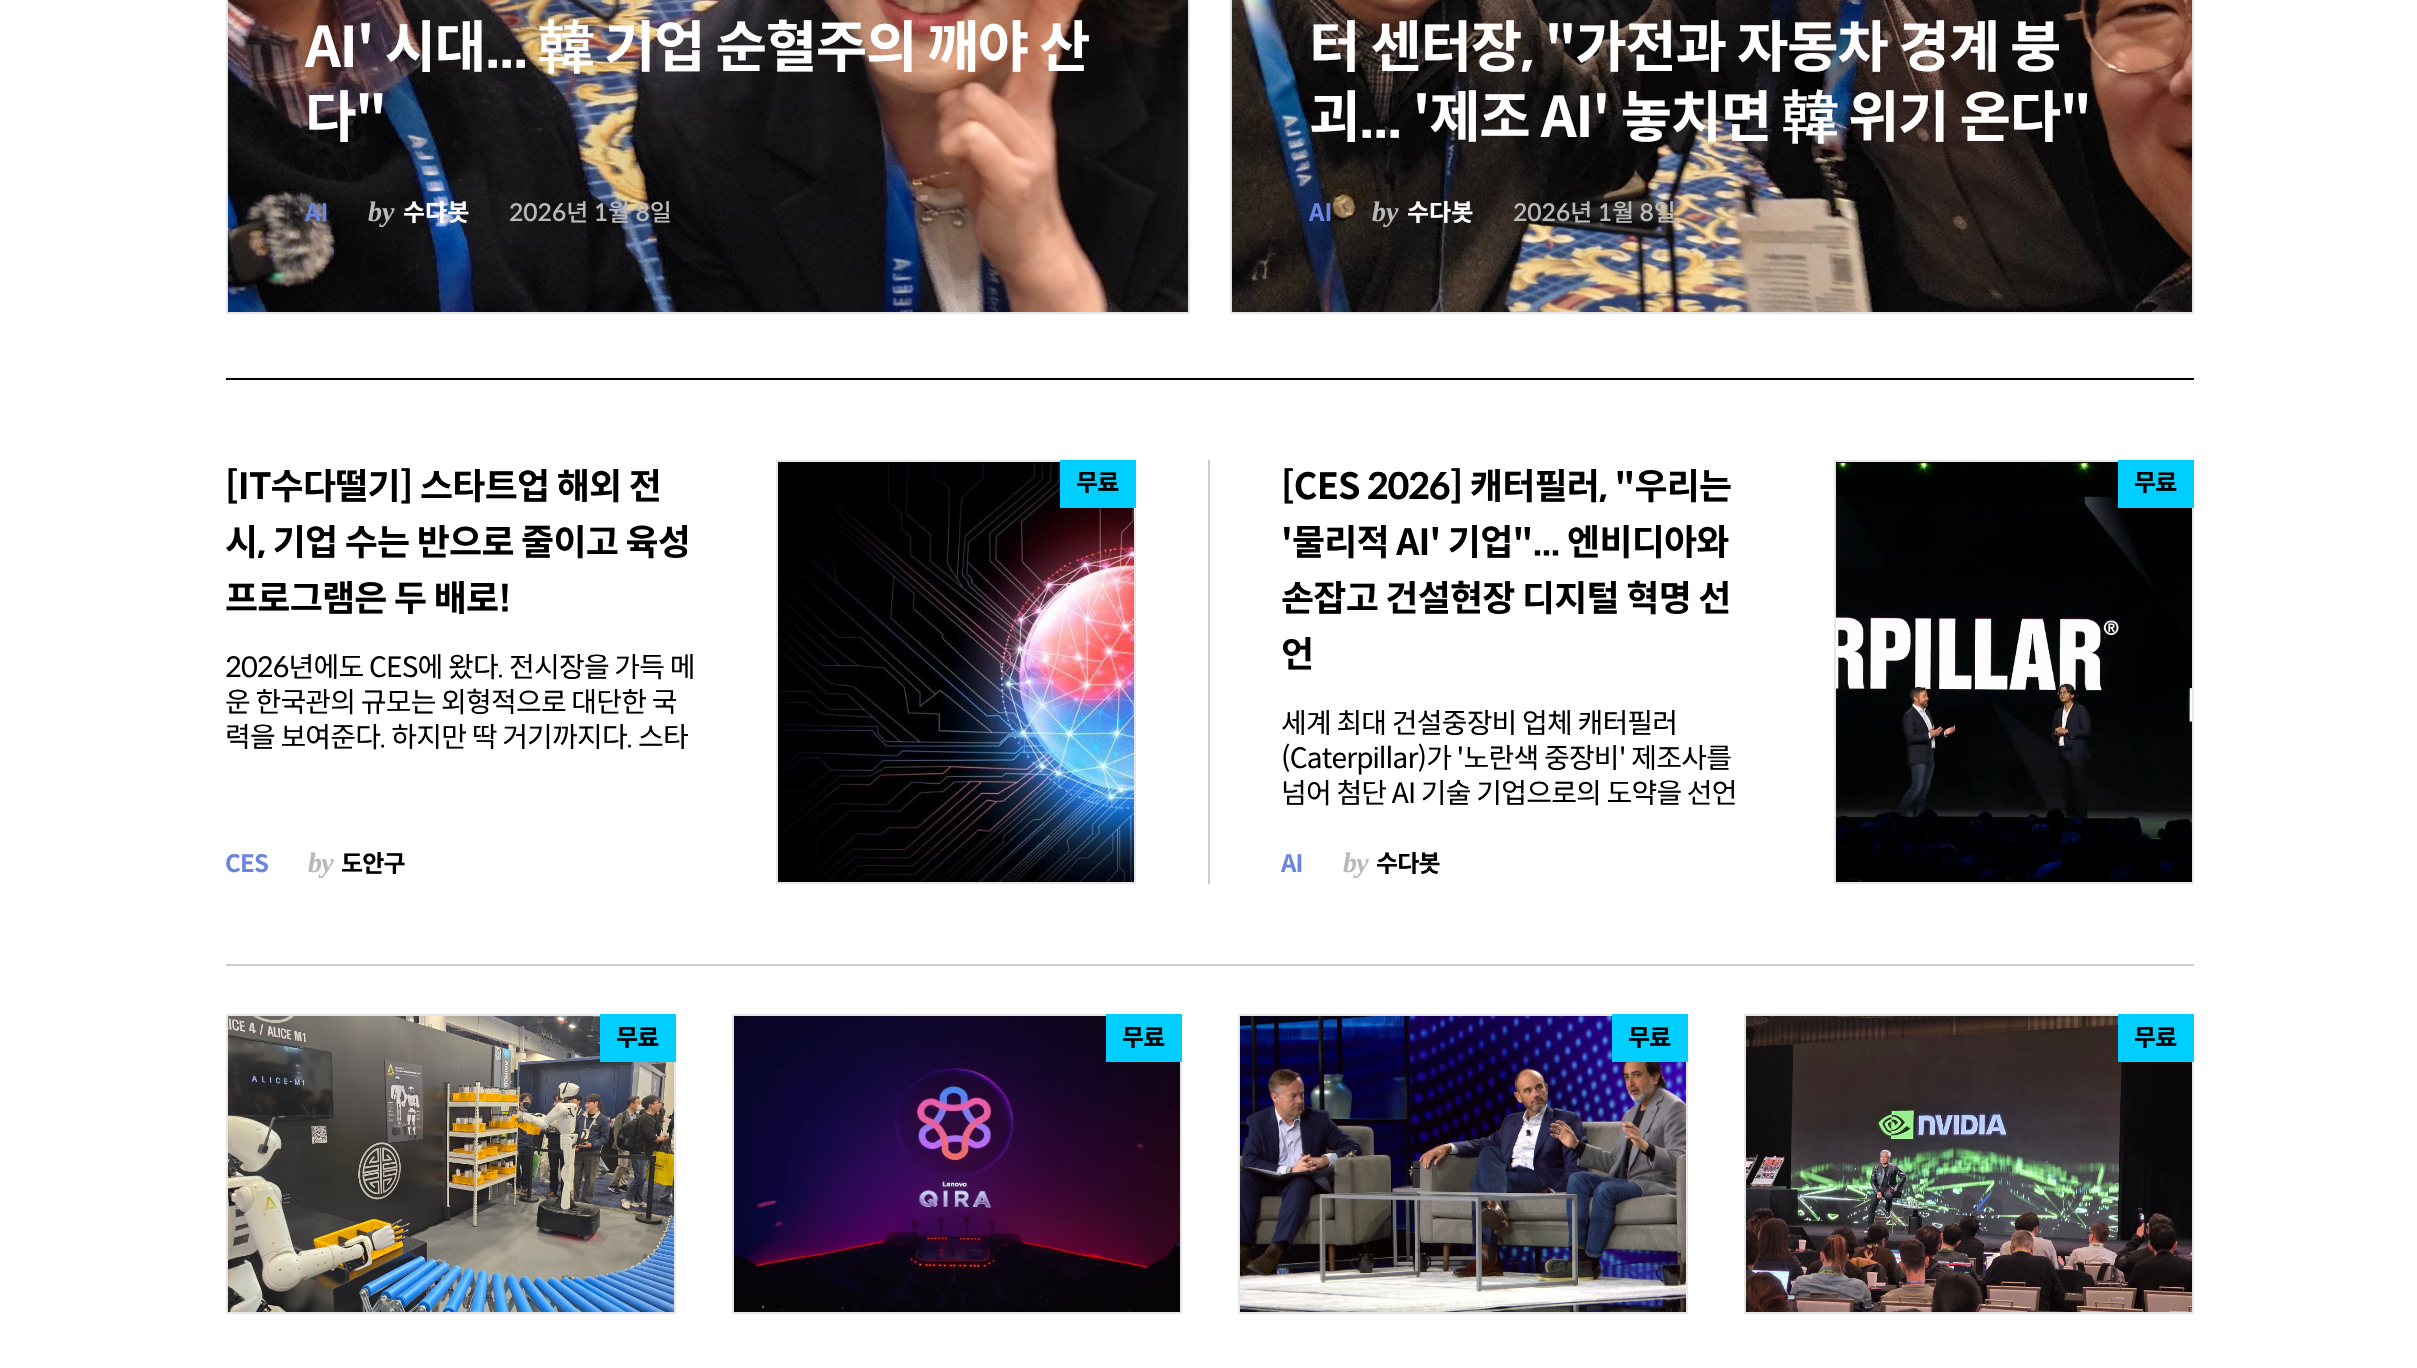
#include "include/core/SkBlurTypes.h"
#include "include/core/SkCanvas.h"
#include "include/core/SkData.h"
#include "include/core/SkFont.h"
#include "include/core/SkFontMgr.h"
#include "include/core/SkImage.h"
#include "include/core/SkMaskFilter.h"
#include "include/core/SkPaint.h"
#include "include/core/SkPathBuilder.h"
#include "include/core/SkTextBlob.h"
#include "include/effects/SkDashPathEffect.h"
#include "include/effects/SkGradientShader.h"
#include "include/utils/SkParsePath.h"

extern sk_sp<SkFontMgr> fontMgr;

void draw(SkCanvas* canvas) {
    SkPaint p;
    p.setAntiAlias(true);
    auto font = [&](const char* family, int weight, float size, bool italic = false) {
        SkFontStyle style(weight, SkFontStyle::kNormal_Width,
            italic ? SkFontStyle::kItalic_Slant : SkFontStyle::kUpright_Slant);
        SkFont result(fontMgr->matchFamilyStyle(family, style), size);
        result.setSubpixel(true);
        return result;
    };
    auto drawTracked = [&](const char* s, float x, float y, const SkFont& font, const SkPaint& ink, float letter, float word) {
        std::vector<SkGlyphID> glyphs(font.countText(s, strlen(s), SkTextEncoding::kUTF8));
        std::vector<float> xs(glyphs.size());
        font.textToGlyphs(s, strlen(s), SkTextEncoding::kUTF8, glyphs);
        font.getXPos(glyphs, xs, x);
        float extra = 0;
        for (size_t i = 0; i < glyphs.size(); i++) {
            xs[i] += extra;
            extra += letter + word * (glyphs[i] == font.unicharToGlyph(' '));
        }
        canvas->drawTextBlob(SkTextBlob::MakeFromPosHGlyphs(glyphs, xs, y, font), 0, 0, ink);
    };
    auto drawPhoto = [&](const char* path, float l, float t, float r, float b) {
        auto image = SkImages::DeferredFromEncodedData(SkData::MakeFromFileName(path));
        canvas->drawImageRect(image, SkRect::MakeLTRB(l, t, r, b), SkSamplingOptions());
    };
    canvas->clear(0xFFFFFFFF);
    p.setColor(0xFFE5E5E5);
    canvas->drawRect(SkRect::MakeLTRB(226, 0, 1190, 314), p);
    drawPhoto("media/1.png", 228, 0, 1188, 312);
    auto font1 = font("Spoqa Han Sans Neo", 700, 56);
    p.setColor(0xFFFFFFFF);
    drawTracked("AI' 시대...", 305, 67, font1, p, -1.4f, 0);
    auto font2 = font("WenQuanYi Zen Hei", 700, 56);
    drawTracked("韓", 538, 67, font2, p, -1.4f, 0);
    drawTracked("기업 순혈주의 깨야 산", 604, 67, font1, p, -1.4f, 0);
    drawTracked("다\"", 305, 137, font1, p, -1.4f, 0);
    auto font3 = font("Spoqa Han Sans Neo", 700, 24);
    p.setColor(0xFF6B86E2);
    canvas->drawString("AI", 305, 221, font3, p);
    auto font4 = font("Tinos", 700, 28, true);
    p.setColor(0xFFB9B9B9);
    canvas->drawString("by", 368, 221, font4, p);
    p.setColor(0xFFFFFFFF);
    canvas->drawString("수다봇", 403, 221, font3, p);
    auto font5 = font("Spoqa Han Sans Neo", 500, 24);
    p.setColor(0xFFB9B9B9);
    canvas->drawString("2026년 1월 8일", 509, 221, font5, p);
    p.setColor(0xFFE5E5E5);
    canvas->drawRect(SkRect::MakeLTRB(1230, 0, 2194, 314), p);
    drawPhoto("media/2.png", 1232, 0, 2192, 312);
    p.setColor(0xFFFFFFFF);
    drawTracked("터 센터장, \"가전과 자동차 경계 붕", 1309, 67, font1, p, -1.4f, 0);
    drawTracked("괴... '제조 AI' 놓치면", 1309, 137, font1, p, -1.4f, 0);
    drawTracked("韓", 1782, 137, font2, p, -1.4f, 0);
    drawTracked("위기 온다\"", 1848, 137, font1, p, -1.4f, 0);
    p.setColor(0xFF6B86E2);
    canvas->drawString("AI", 1309, 221, font3, p);
    p.setColor(0xFFB9B9B9);
    canvas->drawString("by", 1372, 221, font4, p);
    p.setColor(0xFFFFFFFF);
    canvas->drawString("수다봇", 1407, 221, font3, p);
    p.setColor(0xFFB9B9B9);
    canvas->drawString("2026년 1월 8일", 1513, 221, font5, p);
    {
        const struct { float l, t, r, b; SkColor color; } items[] = {
            {226, 378, 2194, 380, 0xFF000000},
            {226, 964, 2194, 966, 0xFFCCCCCC},
            {1208, 460, 1210, 884, 0xFFCCCCCC},
        };
        for (auto [l, t, r, b, color] : items) {
            p.setColor(color);
            canvas->drawRect(SkRect::MakeLTRB(l, t, r, b), p);
        }
    }
    auto font6 = font("Spoqa Han Sans Neo", 700, 36);
    p.setColor(0xFF000000);
    {
        const struct { const char* s; float x, y; } items[] = {
            {"[IT수다떨기] 스타트업 해외 전", 225, 499},
            {"시, 기업 수는 반으로 줄이고 육성", 225, 555},
            {"프로그램은 두 배로!", 225, 611},
        };
        for (auto [s, x, y] : items) {
            drawTracked(s, x, y, font6, p, -0.8f, 0);
        }
    }
    auto font7 = font("Spoqa Han Sans Neo", 400, 28);
    {
        const struct { const char* s; float x, y; } items[] = {
            {"2026년에도 CES에 왔다. 전시장을 가득 메", 225, 677},
            {"운 한국관의 규모는 외형적으로 대단한 국", 225, 712},
            {"력을 보여준다. 하지만 딱 거기까지다. 스타", 225, 747},
        };
        for (auto [s, x, y] : items) {
            drawTracked(s, x, y, font7, p, -0.8f, 0);
        }
    }
    p.setColor(0xFF6B86E2);
    drawTracked("CES", 225, 872, font3, p, -0.8f, 0);
    p.setColor(0xFFB9B9B9);
    drawTracked("by", 308, 872, font4, p, -0.8f, 0);
    p.setColor(0xFF000000);
    drawTracked("도안구", 341, 872, font3, p, -0.8f, 0);
    p.setStyle(SkPaint::kStroke_Style);
    p.setStrokeWidth(2);
    p.setColor(0xFFE6E6E6);
    canvas->drawRect(SkRect::MakeLTRB(777, 461, 1135, 883), p);
    drawPhoto("media/3.png", 778, 462, 1134, 882);
    p.setStyle(SkPaint::kFill_Style);
    p.setColor(0xFF00CEFF);
    canvas->drawRect(SkRect::MakeLTRB(1060, 460, 1136, 508), p);
    p.setColor(0xFF000000);
    drawTracked("무료", 1076, 491, font3, p, -0.8f, 0);
    {
        const struct { const char* s; float x, y; } items[] = {
            {"[CES 2026] 캐터필러, \"우리는", 1281, 499},
            {"'물리적 AI' 기업\"... 엔비디아와", 1281, 555},
            {"손잡고 건설현장 디지털 혁명 선", 1281, 611},
            {"언", 1281, 667},
        };
        for (auto [s, x, y] : items) {
            drawTracked(s, x, y, font6, p, -0.8f, 0);
        }
    }
    {
        const struct { const char* s; float x, y; } items[] = {
            {"세계 최대 건설중장비 업체 캐터필러", 1281, 733},
            {"(Caterpillar)가 '노란색 중장비' 제조사를", 1281, 768},
            {"넘어 첨단 AI 기술 기업으로의 도약을 선언", 1281, 803},
        };
        for (auto [s, x, y] : items) {
            drawTracked(s, x, y, font7, p, -0.8f, 0);
        }
    }
    p.setColor(0xFF6B86E2);
    drawTracked("AI", 1281, 872, font3, p, -0.8f, 0);
    p.setColor(0xFFB9B9B9);
    drawTracked("by", 1343, 872, font4, p, -0.8f, 0);
    p.setColor(0xFF000000);
    drawTracked("수다봇", 1376, 872, font3, p, -0.8f, 0);
    p.setStyle(SkPaint::kStroke_Style);
    p.setColor(0xFFE6E6E6);
    canvas->drawRect(SkRect::MakeLTRB(1835, 461, 2193, 883), p);
    drawPhoto("media/4.png", 1836, 462, 2192, 882);
    p.setStyle(SkPaint::kFill_Style);
    p.setColor(0xFF00CEFF);
    canvas->drawRect(SkRect::MakeLTRB(2118, 460, 2194, 508), p);
    p.setColor(0xFF000000);
    drawTracked("무료", 2134, 491, font3, p, -0.8f, 0);
    p.setStyle(SkPaint::kStroke_Style);
    p.setColor(0xFFE6E6E6);
    canvas->drawRect(SkRect::MakeLTRB(227, 1015, 675, 1313), p);
    drawPhoto("media/5.png", 228, 1016, 674, 1312);
    p.setStyle(SkPaint::kFill_Style);
    p.setColor(0xFF00CEFF);
    canvas->drawRect(SkRect::MakeLTRB(600, 1014, 676, 1062), p);
    p.setColor(0xFF000000);
    drawTracked("무료", 616, 1046, font3, p, -0.8f, 0);
    p.setStyle(SkPaint::kStroke_Style);
    p.setColor(0xFFE6E6E6);
    canvas->drawRect(SkRect::MakeLTRB(733, 1015, 1181, 1313), p);
    drawPhoto("media/6.png", 734, 1016, 1180, 1312);
    p.setStyle(SkPaint::kFill_Style);
    p.setColor(0xFF00CEFF);
    canvas->drawRect(SkRect::MakeLTRB(1106, 1014, 1182, 1062), p);
    p.setColor(0xFF000000);
    drawTracked("무료", 1122, 1046, font3, p, -0.8f, 0);
    p.setStyle(SkPaint::kStroke_Style);
    p.setColor(0xFFE6E6E6);
    canvas->drawRect(SkRect::MakeLTRB(1239, 1015, 1687, 1313), p);
    drawPhoto("media/7.png", 1240, 1016, 1686, 1312);
    p.setStyle(SkPaint::kFill_Style);
    p.setColor(0xFF00CEFF);
    canvas->drawRect(SkRect::MakeLTRB(1612, 1014, 1688, 1062), p);
    p.setColor(0xFF000000);
    drawTracked("무료", 1628, 1046, font3, p, -0.8f, 0);
    p.setStyle(SkPaint::kStroke_Style);
    p.setColor(0xFFE6E6E6);
    canvas->drawRect(SkRect::MakeLTRB(1745, 1015, 2193, 1313), p);
    drawPhoto("media/8.png", 1746, 1016, 2192, 1312);
    p.setStyle(SkPaint::kFill_Style);
    p.setColor(0xFF00CEFF);
    canvas->drawRect(SkRect::MakeLTRB(2118, 1014, 2194, 1062), p);
    p.setColor(0xFF000000);
    drawTracked("무료", 2134, 1046, font3, p, -0.8f, 0);
}
